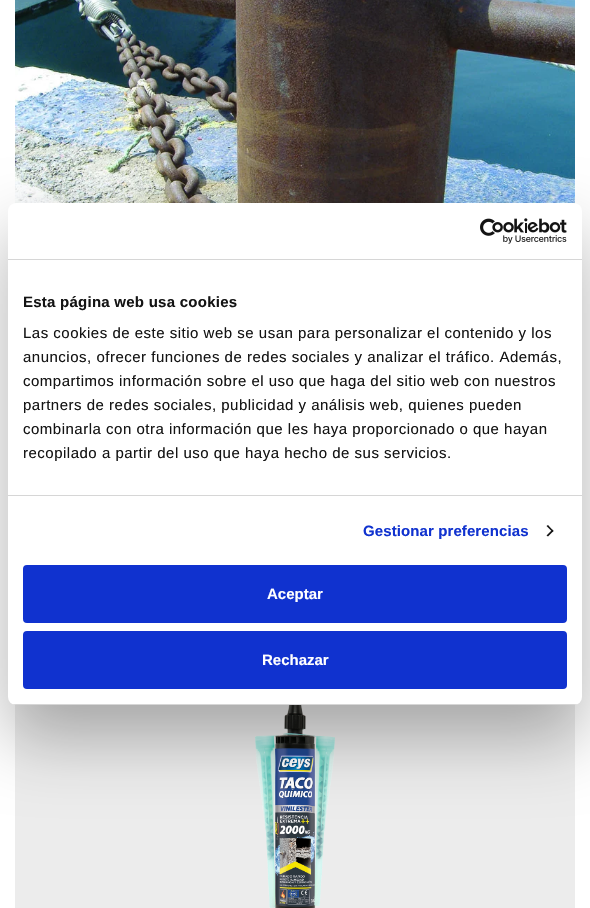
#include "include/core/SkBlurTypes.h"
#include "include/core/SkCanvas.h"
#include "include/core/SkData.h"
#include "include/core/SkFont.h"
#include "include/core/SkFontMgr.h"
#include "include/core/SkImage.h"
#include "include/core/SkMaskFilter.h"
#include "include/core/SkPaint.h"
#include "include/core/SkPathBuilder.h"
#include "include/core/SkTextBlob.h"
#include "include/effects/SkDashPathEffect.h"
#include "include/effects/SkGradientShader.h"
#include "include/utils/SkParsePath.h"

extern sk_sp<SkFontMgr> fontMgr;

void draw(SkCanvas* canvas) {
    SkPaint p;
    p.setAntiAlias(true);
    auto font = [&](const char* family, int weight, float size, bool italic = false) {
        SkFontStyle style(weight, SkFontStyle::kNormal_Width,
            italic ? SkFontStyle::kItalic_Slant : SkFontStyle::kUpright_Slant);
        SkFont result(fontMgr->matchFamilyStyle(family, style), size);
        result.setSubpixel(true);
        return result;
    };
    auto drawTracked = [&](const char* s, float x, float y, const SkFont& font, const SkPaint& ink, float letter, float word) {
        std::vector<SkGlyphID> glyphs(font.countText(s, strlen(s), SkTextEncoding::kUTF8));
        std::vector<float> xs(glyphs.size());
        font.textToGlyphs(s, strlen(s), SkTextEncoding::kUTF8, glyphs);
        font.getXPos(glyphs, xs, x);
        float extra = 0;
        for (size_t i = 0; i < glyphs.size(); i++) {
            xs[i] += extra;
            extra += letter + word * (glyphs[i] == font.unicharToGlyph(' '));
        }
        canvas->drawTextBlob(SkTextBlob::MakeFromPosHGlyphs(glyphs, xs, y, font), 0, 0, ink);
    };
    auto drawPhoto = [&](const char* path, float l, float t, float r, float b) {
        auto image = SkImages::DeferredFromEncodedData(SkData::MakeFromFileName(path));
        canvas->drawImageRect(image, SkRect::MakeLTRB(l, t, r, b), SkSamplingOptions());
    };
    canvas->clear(0xFFFFFFFF);
    drawPhoto("media/1.png", 15, 0, 575, 204);
    p.setColor(0xFFECECEC);
    canvas->drawRect(SkRect::MakeLTRB(15, 704, 575, 908), p);
    drawPhoto("media/2.png", 255, 705, 335, 908);
    p.setColor(0x4D000000);
    p.setMaskFilter(SkMaskFilter::MakeBlur(kNormal_SkBlurStyle, 34));
    canvas->drawRoundRect(SkRect::MakeLTRB(8, 235, 582, 737), 8, 8, p);
    p.setMaskFilter(nullptr);
    p.setColor(0xFFFFFFFF);
    canvas->drawRoundRect(SkRect::MakeLTRB(8, 203, 582, 705), 8, 8, p);
    p.setColor(0xFFD6D6D6);
    canvas->drawRect(SkRect::MakeLTRB(8, 259, 582, 260), p);
    drawPhoto("media/3.png", 480, 218, 567, 244);
    canvas->drawRect(SkRect::MakeLTRB(8, 495, 582, 496), p);
    auto font1 = font("Liberation Sans", 700, 15);
    p.setColor(0xFF141414);
    drawTracked("Esta página web usa cookies", 23, 307, font1, p, 0.25f, 0);
    auto font2 = font("Liberation Sans", 400, 15);
    {
        const struct { const char* s; float x, y; } items[] = {
            {"Las cookies de este sitio web se usan para personalizar el contenido y los", 23, 338},
            {"anuncios, ofrecer funciones de redes sociales y analizar el tráfico. Además,", 23, 362},
            {"compartimos información sobre el uso que haga del sitio web con nuestros", 23, 386},
            {"partners de redes sociales, publicidad y análisis web, quienes pueden", 23, 410},
            {"combinarla con otra información que les haya proporcionado o que hayan", 23, 434},
            {"recopilado a partir del uso que haya hecho de sus servicios.", 23, 458},
        };
        for (auto [s, x, y] : items) {
            drawTracked(s, x, y, font2, p, 0.5f, 0);
        }
    }
    p.setColor(0xFF1032CF);
    drawTracked("Gestionar preferencias", 363, 536, font1, p, 0.1f, 0);
    p.setColor(0xFF141414);
    canvas->drawPath(SkPathBuilder().moveTo(548, 525).lineTo(553.5f, 531).lineTo(552.5f, 532).lineTo(546.5f, 526).close().detach(), p);
    canvas->drawPath(SkPathBuilder().moveTo(552.5f, 529.5f).lineTo(553.5f, 531).lineTo(548, 536.5f).lineTo(546.5f, 535.5f).close().detach(), p);
    canvas->save();
    canvas->clipPath(SkPathBuilder().moveTo(16, 203).lineTo(574, 203).cubicTo(578.5f, 203, 582, 206.5f, 582, 211).lineTo(582, 697).cubicTo(582, 701.5f, 578.5f, 705, 574, 705).lineTo(16, 705).cubicTo(11.5f, 705, 8, 701.5f, 8, 697).lineTo(8, 211).cubicTo(8, 206.5f, 11.5f, 203, 16, 203).close().detach(), true);
    p.setColor(0xFFD6D6D6);
    canvas->drawRect(SkRect::MakeLTRB(8, 704, 582, 705), p);
    canvas->restore();
    p.setColor(0xFF1032CF);
    canvas->drawRoundRect(SkRect::MakeLTRB(24, 566, 566, 622), 3, 3, p);
    p.setStyle(SkPaint::kStroke_Style);
    p.setStrokeWidth(2);
    canvas->drawRoundRect(SkRect::MakeLTRB(24, 566, 566, 622), 3, 3, p);
    p.setStyle(SkPaint::kFill_Style);
    p.setColor(0xFFFFFFFF);
    canvas->drawString("Aceptar", 267, 599, font1, p);
    p.setColor(0xFF1032CF);
    canvas->drawRoundRect(SkRect::MakeLTRB(24, 632, 566, 688), 3, 3, p);
    p.setStyle(SkPaint::kStroke_Style);
    canvas->drawRoundRect(SkRect::MakeLTRB(24, 632, 566, 688), 3, 3, p);
    p.setStyle(SkPaint::kFill_Style);
    p.setColor(0xFFFFFFFF);
    canvas->drawString("Rechazar", 262, 665, font1, p);
}
